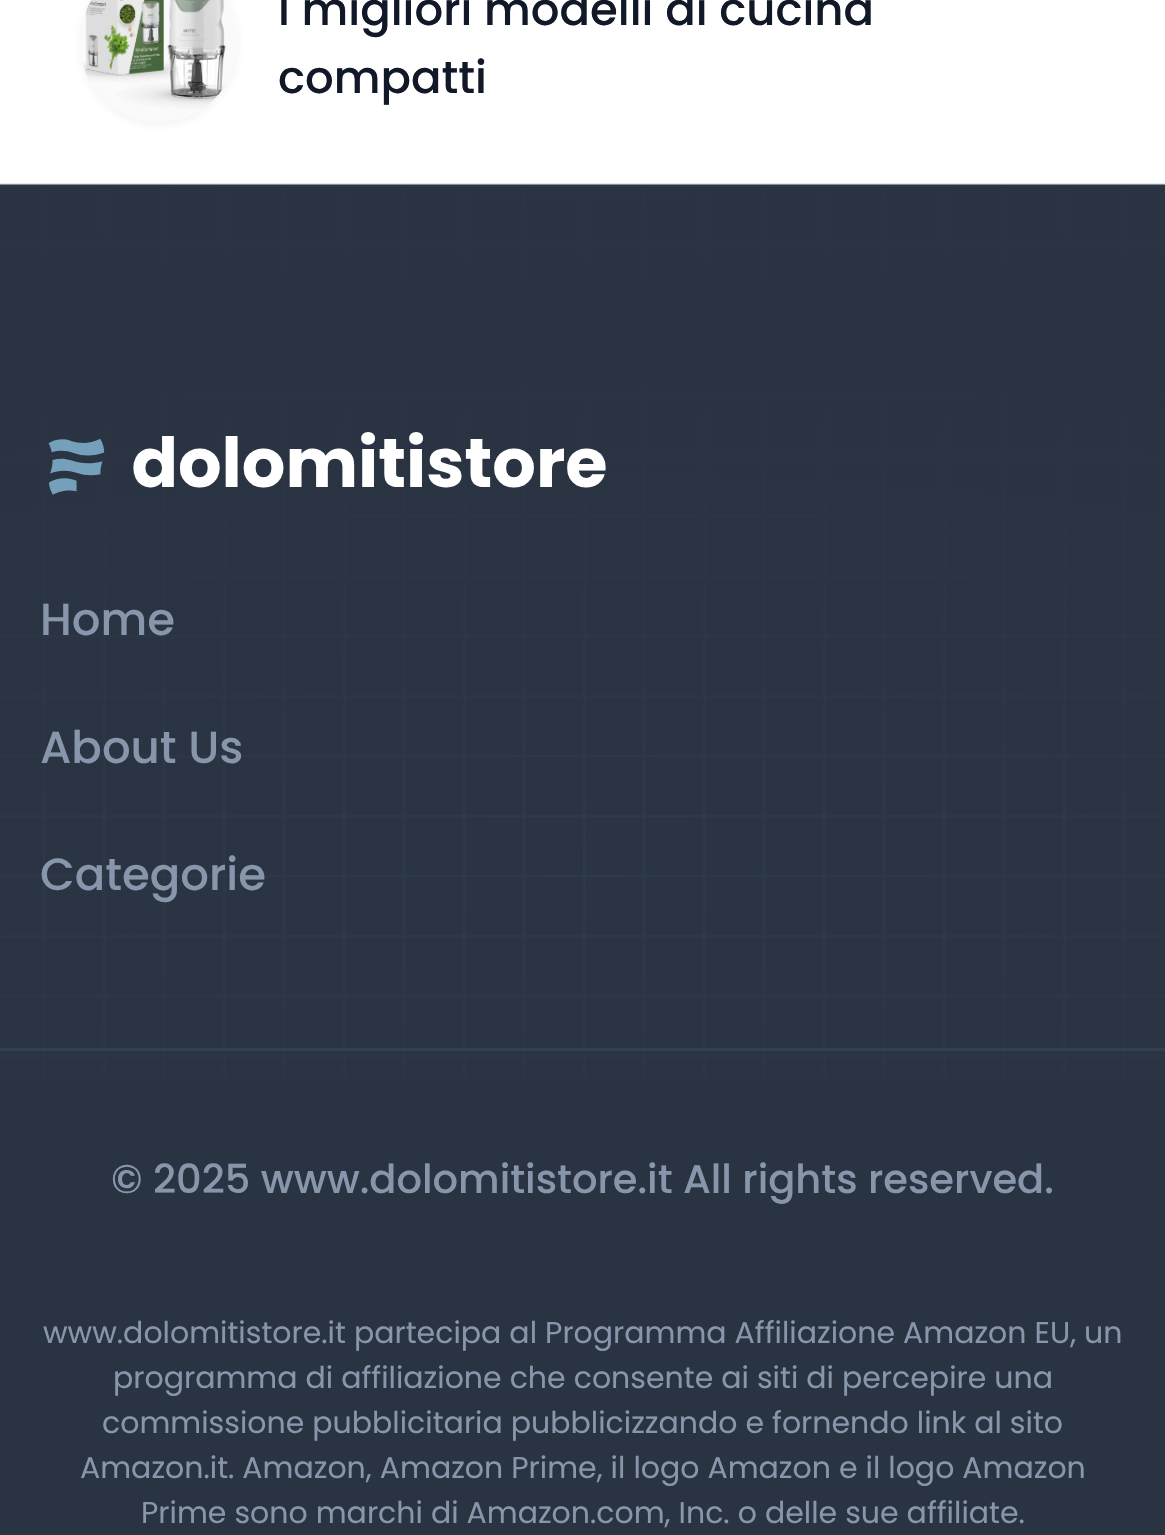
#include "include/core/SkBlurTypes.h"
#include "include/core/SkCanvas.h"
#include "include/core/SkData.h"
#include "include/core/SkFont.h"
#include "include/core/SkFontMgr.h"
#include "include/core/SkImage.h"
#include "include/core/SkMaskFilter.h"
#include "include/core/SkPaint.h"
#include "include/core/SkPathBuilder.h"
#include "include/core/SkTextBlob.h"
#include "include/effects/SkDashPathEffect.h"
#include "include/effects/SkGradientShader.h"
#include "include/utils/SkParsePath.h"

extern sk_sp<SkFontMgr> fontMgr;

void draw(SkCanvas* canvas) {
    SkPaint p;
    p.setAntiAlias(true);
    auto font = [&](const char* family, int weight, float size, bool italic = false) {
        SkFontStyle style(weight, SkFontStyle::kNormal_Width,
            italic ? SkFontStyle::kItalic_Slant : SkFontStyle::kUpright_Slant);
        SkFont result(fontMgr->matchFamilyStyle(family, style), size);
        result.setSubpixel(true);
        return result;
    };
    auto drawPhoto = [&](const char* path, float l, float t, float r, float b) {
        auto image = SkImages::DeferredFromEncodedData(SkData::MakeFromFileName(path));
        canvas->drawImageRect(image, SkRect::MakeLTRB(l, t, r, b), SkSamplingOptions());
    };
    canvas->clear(0xFFFFFFFF);
    p.setColor(0x0F2A3342);
    p.setMaskFilter(SkMaskFilter::MakeBlur(kNormal_SkBlurStyle, 4));
    canvas->drawRoundRect(SkRect::MakeLTRB(80, -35, 238, 125), 79, 79, p);
    p.setMaskFilter(nullptr);
    drawPhoto("media/1.png", 80, 0, 237, 122);
    auto font1 = font("Poppins", 500, 45);
    p.setColor(0xFF111827);
    canvas->drawString("I migliori modelli di cucina", 278, 25, font1, p);
    canvas->drawString("compatti", 278, 93, font1, p);
    p.setColor(0xFFE5E7EB);
    canvas->drawRect(SkRect::MakeLTRB(0, 183, 1165, 185), p);
    p.setColor(0xFF2A3342);
    canvas->drawRect(SkRect::MakeLTRB(0, 1078, 1165, 1535), p);
    drawPhoto("media/2.png", 0, 184, 1165, 1078);
    drawPhoto("media/3.png", 48, 432, 606, 495);
    p.setColor(0xFF8896AB);
    {
        const struct { const char* s; float x, y; } items[] = {
            {"Home", 40, 635},
            {"About Us", 40, 763},
            {"Categorie", 40, 890},
        };
        for (auto [s, x, y] : items) {
            canvas->drawString(s, x, y, font1, p);
        }
    }
    p.setColor(0xFF333F51);
    canvas->drawRect(SkRect::MakeLTRB(0, 1048, 1165, 1051), p);
    auto font2 = font("Poppins", 500, 40);
    p.setColor(0xFF8896AB);
    canvas->drawString("© 2025 www.dolomitistore.it All rights reserved.", 111, 1193, font2, p);
    auto font3 = font("Poppins", 400, 30);
    {
        const struct { const char* s; float x, y; } items[] = {
            {"www.dolomitistore.it partecipa al Programma Affiliazione Amazon EU, un", 43, 1343},
            {"programma di affiliazione che consente ai siti di percepire una", 113, 1388},
            {"commissione pubblicitaria pubblicizzando e fornendo link al sito", 102, 1433},
            {"Amazon.it. Amazon, Amazon Prime, il logo Amazon e il logo Amazon", 80, 1478},
            {"Prime sono marchi di Amazon.com, Inc. o delle sue affiliate.", 141, 1523},
        };
        for (auto [s, x, y] : items) {
            canvas->drawString(s, x, y, font3, p);
        }
    }
}
